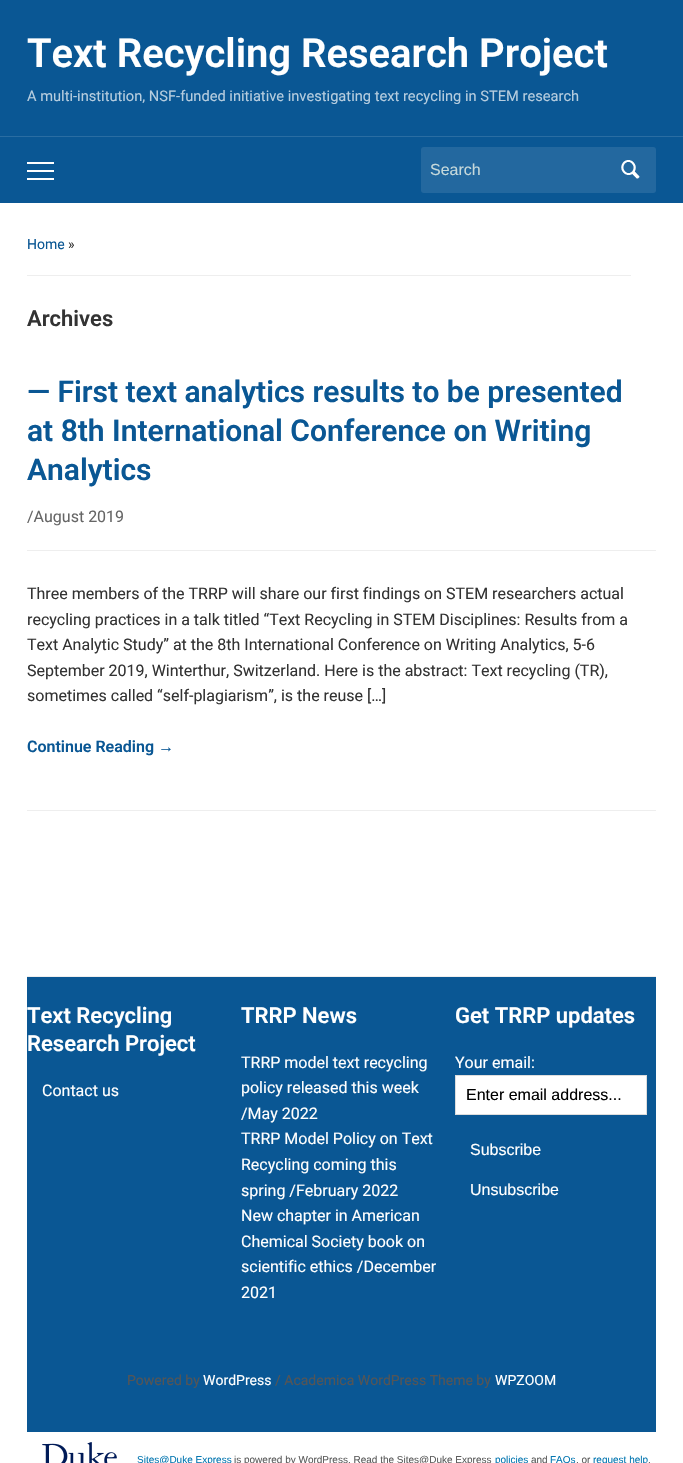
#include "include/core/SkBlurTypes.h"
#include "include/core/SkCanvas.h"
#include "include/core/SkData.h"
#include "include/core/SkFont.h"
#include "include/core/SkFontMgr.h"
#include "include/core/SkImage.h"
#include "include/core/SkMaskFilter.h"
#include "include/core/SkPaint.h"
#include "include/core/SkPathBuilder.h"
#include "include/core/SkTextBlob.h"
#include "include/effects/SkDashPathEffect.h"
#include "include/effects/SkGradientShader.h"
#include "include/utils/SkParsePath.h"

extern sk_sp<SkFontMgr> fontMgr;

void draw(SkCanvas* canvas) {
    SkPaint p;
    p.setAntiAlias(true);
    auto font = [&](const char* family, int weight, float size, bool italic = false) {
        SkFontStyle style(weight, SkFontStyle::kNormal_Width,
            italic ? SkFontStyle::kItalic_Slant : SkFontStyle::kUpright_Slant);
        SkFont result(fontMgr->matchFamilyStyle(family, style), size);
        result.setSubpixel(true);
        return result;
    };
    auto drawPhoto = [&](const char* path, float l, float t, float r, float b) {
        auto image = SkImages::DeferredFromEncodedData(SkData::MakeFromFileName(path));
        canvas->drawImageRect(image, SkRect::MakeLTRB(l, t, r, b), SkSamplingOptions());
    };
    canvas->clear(0xFFFFFFFF);
    p.setColor(0xFF0A5794);
    canvas->drawRect(SkRect::MakeLTRB(0, 0, 683, 203), p);
    auto font1 = font("Roboto", 600, 40);
    p.setColor(0xFFFFFFFF);
    canvas->drawString("Text Recycling Research Project", 27, 67, font1, p);
    auto font2 = font("Roboto", 400, 14.65f);
    p.setColor(0xFFB6CDDF);
    canvas->drawString("A multi-institution, NSF-funded initiative investigating text recycling in STEM research", 27, 101, font2, p);
    {
        const struct { float l, t, r, b; SkColor color; } items[] = {
            {0, 136, 683, 137, 0xFF2A6DA2},
            {27, 162, 54, 164, 0xFFFFFFFF},
            {27, 170, 54, 172, 0xFFFFFFFF},
            {27, 178, 54, 180, 0xFFFFFFFF},
        };
        for (auto [l, t, r, b, color] : items) {
            p.setColor(color);
            canvas->drawRect(SkRect::MakeLTRB(l, t, r, b), p);
        }
    }
    p.setColor(0xFF23689F);
    canvas->drawRoundRect(SkRect::MakeLTRB(421, 147, 656, 193), 3, 3, p);
    auto font3 = font("Liberation Sans", 400, 16);
    p.setColor(0xFFC6D9DB);
    canvas->drawString("Search", 430, 175, font3, p);
    drawPhoto("media/1.png", 621, 160, 640, 179);
    p.setColor(0xFFEEEEEE);
    canvas->drawRect(SkRect::MakeLTRB(27, 275, 631, 276), p);
    auto font4 = font("Roboto", 400, 14);
    p.setColor(0xFF0A5794);
    canvas->drawString("Home", 27, 249, font4, p);
    p.setColor(0xFF333333);
    canvas->drawString("»", 68, 249, font4, p);
    auto font5 = font("Roboto", 600, 22);
    canvas->drawString("Archives", 27, 326, font5, p);
    p.setColor(0xFFEEEEEE);
    canvas->drawRect(SkRect::MakeLTRB(27, 810, 656, 811), p);
    auto font6 = font("Roboto", 600, 30);
    p.setColor(0xFF0A5794);
    {
        const struct { const char* s; float x, y; } items[] = {
            {"— First text analytics results to be presented", 27, 402},
            {"at 8th International Conference on Writing", 27, 441},
            {"Analytics", 27, 480},
        };
        for (auto [s, x, y] : items) {
            canvas->drawString(s, x, y, font6, p);
        }
    }
    p.setColor(0xFFEEEEEE);
    canvas->drawRect(SkRect::MakeLTRB(27, 550, 656, 551), p);
    auto font7 = font("Roboto", 400, 16);
    p.setColor(0xFF666666);
    canvas->drawString("/August 2019", 27, 522, font7, p);
    p.setColor(0xFF333333);
    {
        const struct { const char* s; float x, y; } items[] = {
            {"Three members of the TRRP will share our first findings on STEM researchers actual", 27, 599},
            {"recycling practices in a talk titled “Text Recycling in STEM Disciplines: Results from a", 27, 625},
            {"Text Analytic Study” at the 8th International Conference on Writing Analytics, 5-6", 27, 650},
            {"September 2019, Winterthur, Switzerland. Here is the abstract: Text recycling (TR),", 27, 676},
            {"sometimes called “self-plagiarism”, is the reuse […]", 27, 701},
        };
        for (auto [s, x, y] : items) {
            canvas->drawString(s, x, y, font7, p);
        }
    }
    auto font8 = font("Roboto", 600, 16);
    p.setColor(0xFF0A5794);
    canvas->drawString("Continue Reading", 27, 752, font8, p);
    auto font9 = font("Liberation Sans", 700, 16);
    canvas->drawString("→", 158, 752, font9, p);
    canvas->drawRect(SkRect::MakeLTRB(27, 977, 656, 1432), p);
    p.setColor(0xFFEEEEEE);
    canvas->drawRect(SkRect::MakeLTRB(27, 976, 656, 977), p);
    p.setColor(0xFFFFFFFF);
    canvas->drawString("Text Recycling", 27, 1023, font5, p);
    canvas->drawString("Research Project", 27, 1051, font5, p);
    canvas->drawString("Contact us", 42, 1096, font7, p);
    canvas->drawString("TRRP News", 241, 1023, font5, p);
    {
        const struct { const char* s; float x, y; } items[] = {
            {"TRRP model text recycling", 241, 1068},
            {"policy released this week", 241, 1093},
            {"/May 2022", 241, 1119},
            {"TRRP Model Policy on Text", 241, 1144},
            {"Recycling coming this", 241, 1170},
            {"spring /February 2022", 241, 1196},
            {"New chapter in American", 241, 1221},
            {"Chemical Society book on", 241, 1247},
            {"scientific ethics /December", 241, 1272},
            {"2021", 241, 1298},
        };
        for (auto [s, x, y] : items) {
            canvas->drawString(s, x, y, font7, p);
        }
    }
    canvas->drawString("Get TRRP updates", 455, 1023, font5, p);
    canvas->drawString("Your email:", 455, 1068, font7, p);
    canvas->drawRect(SkRect::MakeLTRB(455.5f, 1075.5f, 646.5f, 1114.5f), p);
    p.setStyle(SkPaint::kStroke_Style);
    p.setStrokeWidth(1);
    p.setColor(0xFFDDDDDD);
    canvas->drawRect(SkRect::MakeLTRB(455.5f, 1075.5f, 646.5f, 1114.5f), p);
    p.setStyle(SkPaint::kFill_Style);
    p.setColor(0xFF000000);
    canvas->drawString("Enter email address...", 466, 1100, font3, p);
    p.setColor(0xFFFFFFFF);
    canvas->drawString("Subscribe", 470, 1155, font3, p);
    canvas->drawString("Unsubscribe", 470, 1195, font3, p);
    p.setColor(0xFF555555);
    canvas->drawString("Powered by", 127, 1385, font4, p);
    p.setColor(0xFFFFFFFF);
    canvas->drawString("WordPress", 203, 1385, font4, p);
    p.setColor(0xFF555555);
    canvas->drawString("/ Academica WordPress Theme by", 275, 1385, font4, p);
    p.setColor(0xFFFFFFFF);
    canvas->drawString("WPZOOM", 495, 1385, font4, p);
    drawPhoto("media/2.png", 42, 1442, 117, 1463);
    auto font10 = font("Liberation Sans", 400, 10);
    p.setColor(0xFF0577B1);
    canvas->drawString("Sites@Duke Express", 137, 1463, font10, p);
    p.setColor(0xFF5B5B5B);
    canvas->drawString("is powered by WordPress. Read the Sites@Duke Express", 234, 1463, font10, p);
    p.setColor(0xFF0577B1);
    canvas->drawString("policies", 495, 1463, font10, p);
    p.setColor(0xFF5B5B5B);
    canvas->drawString("and", 531, 1463, font10, p);
    p.setColor(0xFF0577B1);
    canvas->drawString("FAQs", 550, 1463, font10, p);
    p.setColor(0xFF5B5B5B);
    canvas->drawString(", or", 576, 1463, font10, p);
    p.setColor(0xFF0577B1);
    canvas->drawString("request help", 593, 1463, font10, p);
    p.setColor(0xFF5B5B5B);
    canvas->drawString(".", 648, 1463, font10, p);
}
